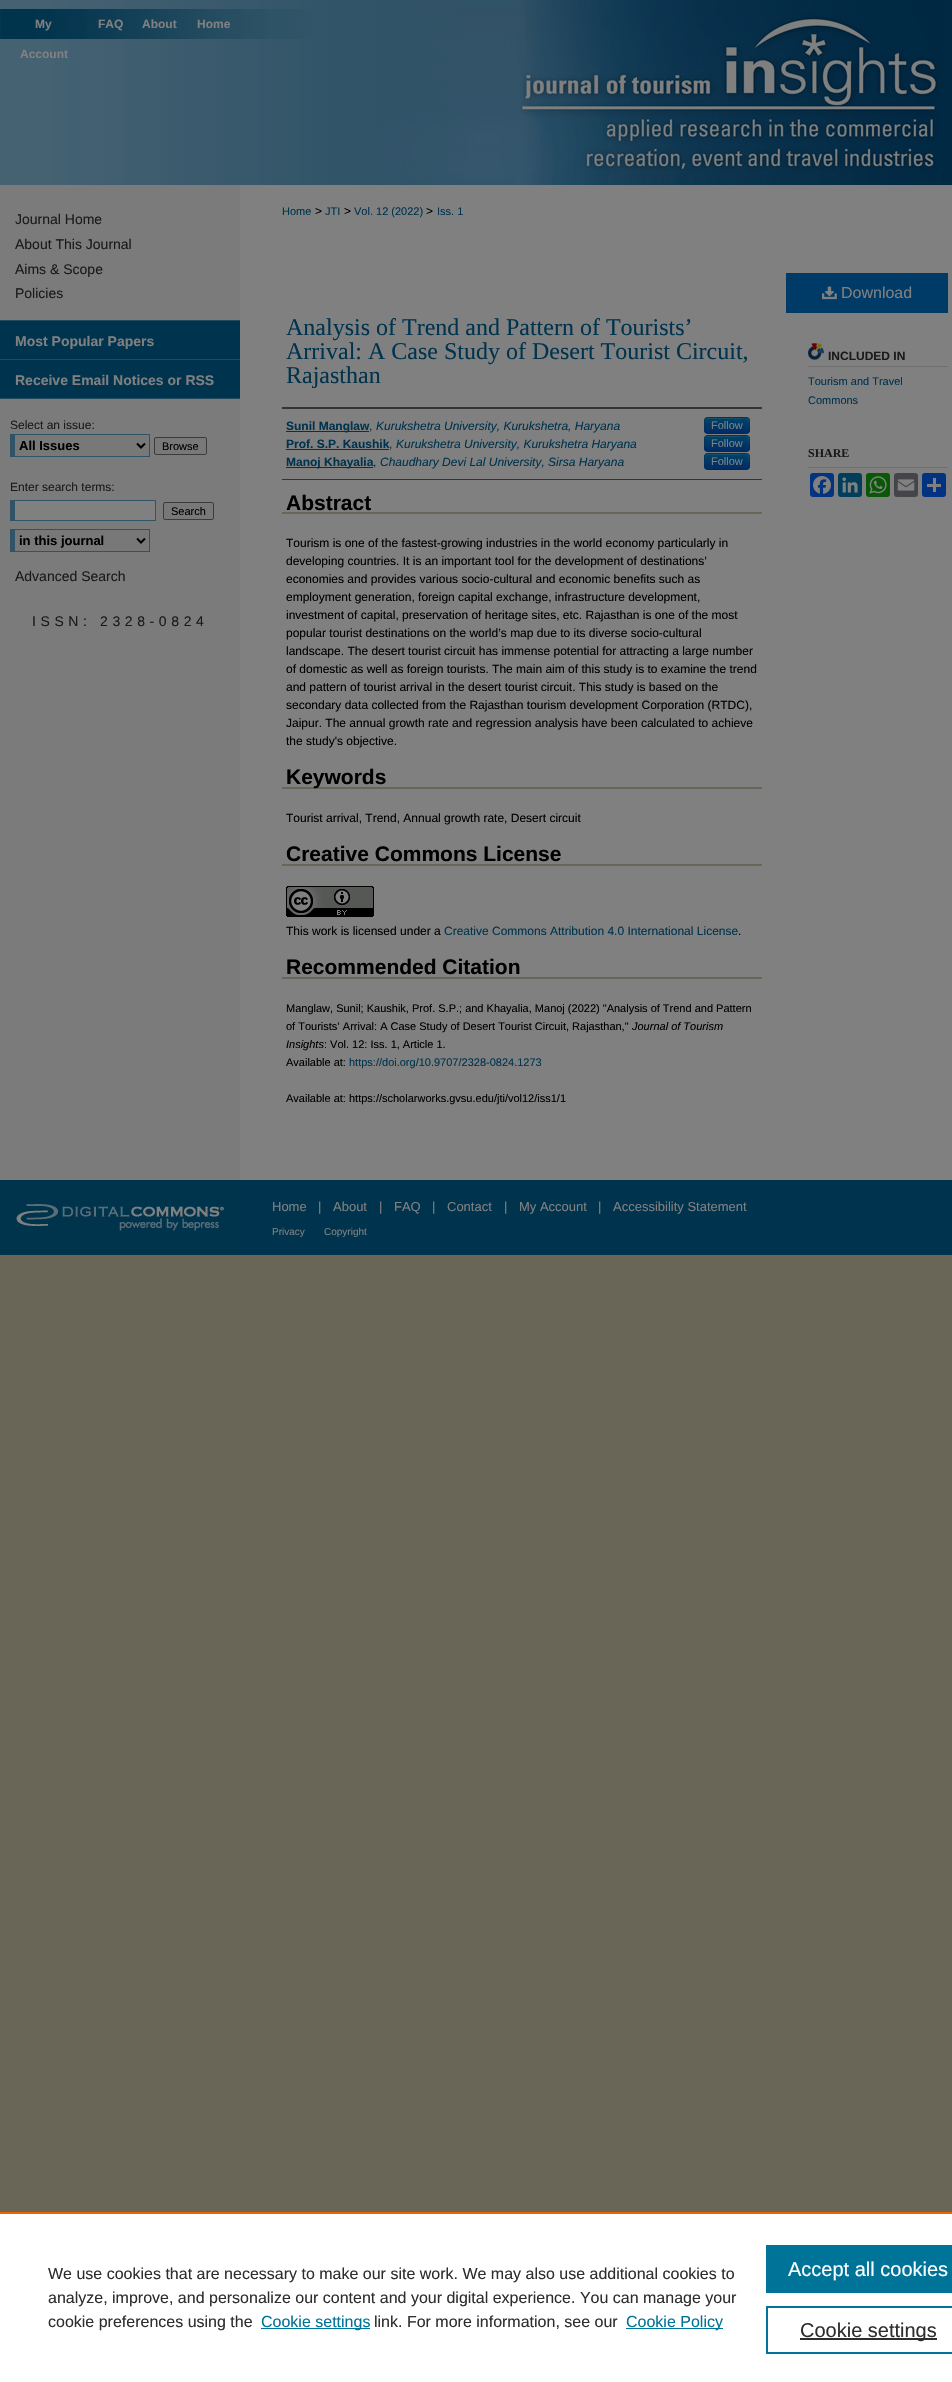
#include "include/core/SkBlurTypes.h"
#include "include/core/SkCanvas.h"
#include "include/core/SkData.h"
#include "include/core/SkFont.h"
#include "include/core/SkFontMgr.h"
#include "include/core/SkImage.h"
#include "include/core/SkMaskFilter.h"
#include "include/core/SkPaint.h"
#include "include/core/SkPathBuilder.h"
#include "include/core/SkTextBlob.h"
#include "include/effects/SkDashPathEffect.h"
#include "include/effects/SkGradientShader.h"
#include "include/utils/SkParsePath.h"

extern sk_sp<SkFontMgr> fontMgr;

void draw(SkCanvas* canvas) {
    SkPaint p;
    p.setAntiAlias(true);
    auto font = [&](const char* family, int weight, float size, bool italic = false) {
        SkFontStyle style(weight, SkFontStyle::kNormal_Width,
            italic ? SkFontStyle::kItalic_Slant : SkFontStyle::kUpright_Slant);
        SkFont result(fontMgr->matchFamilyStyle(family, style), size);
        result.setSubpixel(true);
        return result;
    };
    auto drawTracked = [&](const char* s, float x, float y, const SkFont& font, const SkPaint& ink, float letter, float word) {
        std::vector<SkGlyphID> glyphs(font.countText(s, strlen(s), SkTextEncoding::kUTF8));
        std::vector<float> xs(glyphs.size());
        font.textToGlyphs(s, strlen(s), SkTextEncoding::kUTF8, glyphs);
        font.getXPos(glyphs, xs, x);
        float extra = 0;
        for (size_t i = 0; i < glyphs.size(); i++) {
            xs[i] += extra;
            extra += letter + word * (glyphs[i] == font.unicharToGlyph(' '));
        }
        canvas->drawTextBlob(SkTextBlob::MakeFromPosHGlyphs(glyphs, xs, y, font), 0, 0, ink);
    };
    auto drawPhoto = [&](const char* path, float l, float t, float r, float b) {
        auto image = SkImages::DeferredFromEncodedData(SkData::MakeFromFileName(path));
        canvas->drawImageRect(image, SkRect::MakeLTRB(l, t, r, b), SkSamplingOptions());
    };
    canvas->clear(0xFF696557);
    drawPhoto("media/1.png", 0, 0, 500, 185);
    drawPhoto("media/2.png", 0, 9, 311, 39);
    auto font1 = font("Liberation Sans", 700, 12);
    p.setColor(0xFF808080);
    {
        const struct { const char* s; float x, y; } items[] = {
            {"My", 35, 28},
            {"Account", 20, 58},
            {"FAQ", 98, 28},
            {"About", 142, 28},
            {"Home", 197, 28},
        };
        for (auto [s, x, y] : items) {
            canvas->drawString(s, x, y, font1, p);
        }
    }
    p.setColor(0xFF012943);
    canvas->drawRect(SkRect::MakeLTRB(944, 0, 952, 185), p);
    drawPhoto("media/3.png", 500, 0, 944, 185);
    p.setColor(0xFF7B7B7B);
    canvas->drawRect(SkRect::MakeLTRB(0, 185, 240, 1180), p);
    p.setColor(0xFF808080);
    canvas->drawRect(SkRect::MakeLTRB(240, 185, 952, 1180), p);
    auto font2 = font("Liberation Sans", 400, 14);
    p.setColor(0xFF1A1A1A);
    {
        const struct { const char* s; float x, y; } items[] = {
            {"Journal Home", 15, 224},
            {"About This Journal", 15, 249},
            {"Aims & Scope", 15, 274},
            {"Policies", 15, 298},
        };
        for (auto [s, x, y] : items) {
            canvas->drawString(s, x, y, font2, p);
        }
    }
    {
        const struct { float l, t, r, b; SkColor color; } items[] = {
            {0, 320, 240, 321, 0xFF234B5F},
            {0, 321, 240, 359, 0xFF00334D},
            {0, 359, 240, 360, 0xFF234B5F},
        };
        for (auto [l, t, r, b, color] : items) {
            p.setColor(color);
            canvas->drawRect(SkRect::MakeLTRB(l, t, r, b), p);
        }
    }
    auto font3 = font("Liberation Sans", 700, 14);
    p.setColor(0xFF808080);
    canvas->drawString("Most Popular Papers", 15, 346, font3, p);
    p.setColor(0xFF00334D);
    canvas->drawRect(SkRect::MakeLTRB(0, 360, 240, 398), p);
    p.setColor(0xFF234B5F);
    canvas->drawRect(SkRect::MakeLTRB(0, 398, 240, 399), p);
    p.setColor(0xFF808080);
    canvas->drawString("Receive Email Notices or RSS", 15, 385, font3, p);
    auto font4 = font("Liberation Sans", 400, 12);
    p.setColor(0xFF1A1A1A);
    canvas->drawString("Select an issue:", 10, 429, font4, p);
    {
        const struct { float l, t, r, b; SkColor color; } items[] = {
            {15, 435, 149, 456, 0xFF787878},
            {10, 434, 150, 435, 0xFF2F5367},
            {149, 434, 150, 457, 0xFF2F5367},
            {10, 456, 150, 457, 0xFF2F5367},
            {10, 434, 15, 457, 0xFF2F5367},
        };
        for (auto [l, t, r, b, color] : items) {
            p.setColor(color);
            canvas->drawRect(SkRect::MakeLTRB(l, t, r, b), p);
        }
    }
    p.setStyle(SkPaint::kStroke_Style);
    p.setStrokeWidth(2);
    p.setColor(0xFF000000);
    canvas->drawPath(SkPathBuilder().moveTo(137, 443.5f).lineTo(141, 447.5f).lineTo(145, 443.5f).detach(), p);
    auto font5 = font("Liberation Sans", 700, 13);
    p.setStyle(SkPaint::kFill_Style);
    canvas->drawString("All Issues", 19, 450, font5, p);
    p.setColor(0xFF787878);
    canvas->drawRoundRect(SkRect::MakeLTRB(154.5f, 437.5f, 206.5f, 454.5f), 1.5f, 1.5f, p);
    p.setStyle(SkPaint::kStroke_Style);
    p.setStrokeWidth(1);
    p.setColor(0xFF3B3B3B);
    canvas->drawRoundRect(SkRect::MakeLTRB(154.5f, 437.5f, 206.5f, 454.5f), 1.5f, 1.5f, p);
    auto font6 = font("Liberation Sans", 400, 11);
    p.setStyle(SkPaint::kFill_Style);
    p.setColor(0xFF000000);
    canvas->drawString("Browse", 162, 450, font6, p);
    p.setColor(0xFF1A1A1A);
    canvas->drawString("Enter search terms:", 10, 491, font4, p);
    {
        const struct { float l, t, r, b; SkColor color; } items[] = {
            {15, 501, 155, 520, 0xFF808080},
            {10, 500, 156, 501, 0xFF2F5367},
            {155, 500, 156, 521, 0xFF2F5367},
            {10, 520, 156, 521, 0xFF2F5367},
            {10, 500, 15, 521, 0xFF2F5367},
        };
        for (auto [l, t, r, b, color] : items) {
            p.setColor(color);
            canvas->drawRect(SkRect::MakeLTRB(l, t, r, b), p);
        }
    }
    p.setColor(0xFF787878);
    canvas->drawRoundRect(SkRect::MakeLTRB(163.5f, 502.5f, 213.5f, 519.5f), 1.5f, 1.5f, p);
    p.setStyle(SkPaint::kStroke_Style);
    p.setColor(0xFF3B3B3B);
    canvas->drawRoundRect(SkRect::MakeLTRB(163.5f, 502.5f, 213.5f, 519.5f), 1.5f, 1.5f, p);
    p.setStyle(SkPaint::kFill_Style);
    p.setColor(0xFF000000);
    canvas->drawString("Search", 171, 515, font6, p);
    {
        const struct { float l, t, r, b; SkColor color; } items[] = {
            {15, 530, 149, 551, 0xFF787878},
            {10, 529, 150, 530, 0xFF2F5367},
            {149, 529, 150, 552, 0xFF2F5367},
            {10, 551, 150, 552, 0xFF2F5367},
            {10, 529, 15, 552, 0xFF2F5367},
        };
        for (auto [l, t, r, b, color] : items) {
            p.setColor(color);
            canvas->drawRect(SkRect::MakeLTRB(l, t, r, b), p);
        }
    }
    p.setStyle(SkPaint::kStroke_Style);
    p.setStrokeWidth(2);
    p.setColor(0xFF000000);
    canvas->drawPath(SkPathBuilder().moveTo(137, 538.5f).lineTo(141, 542.5f).lineTo(145, 538.5f).detach(), p);
    p.setStyle(SkPaint::kFill_Style);
    canvas->drawString("in this journal", 19, 545, font5, p);
    p.setColor(0xFF1A1A1A);
    canvas->drawString("Advanced Search", 15, 581, font2, p);
    drawTracked("ISSN: 2328-0824", 32, 626, font2, p, 4.6f, 0);
    p.setColor(0xFF00334D);
    canvas->drawString("Home", 282, 215, font6, p);
    p.setColor(0xFF000000);
    canvas->drawString(">", 315, 215, font4, p);
    p.setColor(0xFF00334D);
    canvas->drawString("JTI", 325, 215, font6, p);
    p.setColor(0xFF000000);
    canvas->drawString(">", 344, 215, font4, p);
    p.setColor(0xFF00334D);
    canvas->drawString("Vol. 12 (2022)", 354, 215, font6, p);
    p.setColor(0xFF000000);
    canvas->drawString(">", 426, 215, font4, p);
    p.setColor(0xFF00334D);
    canvas->drawString("Iss. 1", 437, 215, font6, p);
    auto font7 = font("Liberation Serif", 400, 24);
    {
        const struct { const char* s; float x, y; } items[] = {
            {"Analysis of Trend and Pattern of Tourists’", 286, 335},
            {"Arrival: A Case Study of Desert Tourist Circuit,", 286, 359},
            {"Rajasthan", 286, 383},
        };
        for (auto [s, x, y] : items) {
            canvas->drawString(s, x, y, font7, p);
        }
    }
    {
        const struct { float l, t, r, b; SkColor color; } items[] = {
            {282, 407, 762, 409, 0xFF333333},
            {282, 479, 762, 480, 0xFF333333},
            {286, 431, 369, 432, 0xFF00334D},
        };
        for (auto [l, t, r, b, color] : items) {
            p.setColor(color);
            canvas->drawRect(SkRect::MakeLTRB(l, t, r, b), p);
        }
    }
    canvas->drawString("Sunil Manglaw", 286, 430, font1, p);
    canvas->drawString(",", 369, 430, font4, p);
    auto font8 = font("Liberation Sans", 400, 12, true);
    canvas->drawString("Kurukshetra University, Kurukshetra, Haryana", 376, 430, font8, p);
    p.setColor(0xFF003A66);
    canvas->drawRoundRect(SkRect::MakeLTRB(704, 417, 750, 434), 4, 4, p);
    canvas->save();
    canvas->clipPath(SkPathBuilder().moveTo(708, 417).lineTo(746, 417).cubicTo(748, 417, 750, 419, 750, 421).lineTo(750, 430).cubicTo(750, 432, 748, 434, 746, 434).lineTo(708, 434).cubicTo(706, 434, 704, 432, 704, 430).lineTo(704, 421).cubicTo(704, 419, 706, 417, 708, 417).close().detach(), true);
    {
        const SkColor colors[] = {0xFF004466, 0xFF002B66};
        const float stops[] = {0, 1};
        const SkPoint ends[] = {{727, 418}, {727, 433}};
        p.setShader(SkGradientShader::MakeLinear(ends, colors, stops, 2, SkTileMode::kClamp));
        p.setAlpha(255);
    }
    canvas->drawRect(SkRect::MakeLTRB(704, 418, 750, 433), p);
    canvas->restore();
    p.setShader(nullptr);
    p.setColor(0x33808080);
    canvas->drawPath(SkPathBuilder().moveTo(708, 419).lineTo(733, 419).cubicTo(747, 419, 749, 415, 749, 430).cubicTo(749, 419, 752, 418, 740, 418).lineTo(714, 418).cubicTo(707, 418, 705, 417, 705, 424).lineTo(705, 431).cubicTo(705, 428, 704, 419, 708, 419).close().detach(), p);
    p.setStyle(SkPaint::kStroke_Style);
    p.setStrokeWidth(1);
    p.setColor(0x40000000);
    canvas->drawPath(SkPathBuilder().moveTo(748.5f, 432.5f).cubicTo(748, 433, 747, 433.5f, 746, 433.5f).lineTo(708, 433.5f).cubicTo(707, 433.5f, 706, 433, 705.5f, 432.5f).detach(), p);
    p.setColor(0x1A000000);
    canvas->drawPath(SkPathBuilder().moveTo(705.5f, 432.5f).cubicTo(704, 430.5f, 704.5f, 427.5f, 704.5f, 425.5f).cubicTo(704.5f, 416.5f, 705, 417.5f, 714.5f, 417.5f).lineTo(739.5f, 417.5f).cubicTo(749, 417.5f, 749.5f, 416.5f, 749.5f, 425.5f).cubicTo(749.5f, 427.5f, 750, 430.5f, 748.5f, 432.5f).detach(), p);
    p.setStyle(SkPaint::kFill_Style);
    p.setColor(0xFF808080);
    canvas->drawString("Follow", 711, 429, font6, p);
    p.setColor(0xFF00334D);
    canvas->drawString("Prof. S.P. Kaushik", 286, 448, font1, p);
    canvas->drawRect(SkRect::MakeLTRB(286, 449, 389, 450), p);
    canvas->drawString(",", 389, 448, font4, p);
    canvas->drawString("Kurukshetra University, Kurukshetra Haryana", 396, 448, font8, p);
    p.setColor(0xFF003A66);
    canvas->drawRoundRect(SkRect::MakeLTRB(704, 435, 750, 452), 4, 4, p);
    canvas->save();
    canvas->clipPath(SkPathBuilder().moveTo(708, 435).lineTo(746, 435).cubicTo(748, 435, 750, 437, 750, 439).lineTo(750, 448).cubicTo(750, 450, 748, 452, 746, 452).lineTo(708, 452).cubicTo(706, 452, 704, 450, 704, 448).lineTo(704, 439).cubicTo(704, 437, 706, 435, 708, 435).close().detach(), true);
    {
        const SkColor colors[] = {0xFF004466, 0xFF002B66};
        const float stops[] = {0, 1};
        const SkPoint ends[] = {{727, 436}, {727, 451}};
        p.setShader(SkGradientShader::MakeLinear(ends, colors, stops, 2, SkTileMode::kClamp));
        p.setAlpha(255);
    }
    canvas->drawRect(SkRect::MakeLTRB(704, 436, 750, 451), p);
    canvas->restore();
    p.setShader(nullptr);
    p.setColor(0x33808080);
    canvas->drawPath(SkPathBuilder().moveTo(708, 437).lineTo(733, 437).cubicTo(747, 437, 749, 433, 749, 448).cubicTo(749, 437, 752, 436, 740, 436).lineTo(714, 436).cubicTo(707, 436, 705, 435, 705, 442).lineTo(705, 449).cubicTo(705, 446, 704, 437, 708, 437).close().detach(), p);
    p.setStyle(SkPaint::kStroke_Style);
    p.setColor(0x40000000);
    canvas->drawPath(SkPathBuilder().moveTo(748.5f, 450.5f).cubicTo(748, 451, 747, 451.5f, 746, 451.5f).lineTo(708, 451.5f).cubicTo(707, 451.5f, 706, 451, 705.5f, 450.5f).detach(), p);
    p.setColor(0x1A000000);
    canvas->drawPath(SkPathBuilder().moveTo(705.5f, 450.5f).cubicTo(704, 448.5f, 704.5f, 445.5f, 704.5f, 443.5f).cubicTo(704.5f, 434.5f, 705, 435.5f, 714.5f, 435.5f).lineTo(739.5f, 435.5f).cubicTo(749, 435.5f, 749.5f, 434.5f, 749.5f, 443.5f).cubicTo(749.5f, 445.5f, 750, 448.5f, 748.5f, 450.5f).detach(), p);
    p.setStyle(SkPaint::kFill_Style);
    p.setColor(0xFF808080);
    canvas->drawString("Follow", 711, 447, font6, p);
    p.setColor(0xFF00334D);
    canvas->drawRect(SkRect::MakeLTRB(286, 467, 373, 468), p);
    canvas->drawString("Manoj Khayalia", 286, 466, font1, p);
    canvas->drawString(",", 373, 466, font4, p);
    canvas->drawString("Chaudhary Devi Lal University, Sirsa Haryana", 380, 466, font8, p);
    p.setColor(0xFF003A66);
    canvas->drawRoundRect(SkRect::MakeLTRB(704, 453, 750, 470), 4, 4, p);
    canvas->save();
    canvas->clipPath(SkPathBuilder().moveTo(708, 453).lineTo(746, 453).cubicTo(748, 453, 750, 455, 750, 457).lineTo(750, 466).cubicTo(750, 468, 748, 470, 746, 470).lineTo(708, 470).cubicTo(706, 470, 704, 468, 704, 466).lineTo(704, 457).cubicTo(704, 455, 706, 453, 708, 453).close().detach(), true);
    {
        const SkColor colors[] = {0xFF004466, 0xFF002B66};
        const float stops[] = {0, 1};
        const SkPoint ends[] = {{727, 454}, {727, 469}};
        p.setShader(SkGradientShader::MakeLinear(ends, colors, stops, 2, SkTileMode::kClamp));
        p.setAlpha(255);
    }
    canvas->drawRect(SkRect::MakeLTRB(704, 454, 750, 469), p);
    canvas->restore();
    p.setShader(nullptr);
    p.setColor(0x33808080);
    canvas->drawPath(SkPathBuilder().moveTo(708, 455).lineTo(733, 455).cubicTo(747, 455, 749, 451, 749, 466).cubicTo(749, 455, 752, 454, 740, 454).lineTo(714, 454).cubicTo(707, 454, 705, 453, 705, 460).lineTo(705, 467).cubicTo(705, 464, 704, 455, 708, 455).close().detach(), p);
    p.setStyle(SkPaint::kStroke_Style);
    p.setColor(0x40000000);
    canvas->drawPath(SkPathBuilder().moveTo(748.5f, 468.5f).cubicTo(748, 469, 747, 469.5f, 746, 469.5f).lineTo(708, 469.5f).cubicTo(707, 469.5f, 706, 469, 705.5f, 468.5f).detach(), p);
    p.setColor(0x1A000000);
    canvas->drawPath(SkPathBuilder().moveTo(705.5f, 468.5f).cubicTo(704, 466.5f, 704.5f, 463.5f, 704.5f, 461.5f).cubicTo(704.5f, 452.5f, 705, 453.5f, 714.5f, 453.5f).lineTo(739.5f, 453.5f).cubicTo(749, 453.5f, 749.5f, 452.5f, 749.5f, 461.5f).cubicTo(749.5f, 463.5f, 750, 466.5f, 748.5f, 468.5f).detach(), p);
    p.setStyle(SkPaint::kFill_Style);
    p.setColor(0xFF808080);
    canvas->drawString("Follow", 711, 465, font6, p);
    p.setColor(0xFF696557);
    canvas->drawRect(SkRect::MakeLTRB(282, 512, 762, 514), p);
    auto font9 = font("Liberation Sans", 700, 21);
    p.setColor(0xFF000000);
    canvas->drawString("Abstract", 286, 510, font9, p);
    {
        const struct { const char* s; float x, y; } items[] = {
            {"Tourism is one of the fastest-growing industries in the world economy particularly in", 286, 547},
            {"developing countries. It is an important tool for the development of destinations’", 286, 565},
            {"economies and provides various socio-cultural and economic benefits such as", 286, 583},
            {"employment generation, foreign capital exchange, infrastructure development,", 286, 601},
            {"investment of capital, preservation of heritage sites, etc. Rajasthan is one of the most", 286, 619},
            {"popular tourist destinations on the world’s map due to its diverse socio-cultural", 286, 637},
            {"landscape. The desert tourist circuit has immense potential for attracting a large number", 286, 655},
            {"of domestic as well as foreign tourists. The main aim of this study is to examine the trend", 286, 673},
            {"and pattern of tourist arrival in the desert tourist circuit. This study is based on the", 286, 691},
            {"secondary data collected from the Rajasthan tourism development Corporation (RTDC),", 286, 709},
            {"Jaipur. The annual growth rate and regression analysis have been calculated to achieve", 286, 727},
            {"the study's objective.", 286, 745},
        };
        for (auto [s, x, y] : items) {
            canvas->drawString(s, x, y, font4, p);
        }
    }
    p.setColor(0xFF696557);
    canvas->drawRect(SkRect::MakeLTRB(282, 787, 762, 789), p);
    p.setColor(0xFF000000);
    canvas->drawString("Keywords", 286, 784, font9, p);
    canvas->drawString("Tourist arrival, Trend, Annual growth rate, Desert circuit", 286, 822, font4, p);
    p.setColor(0xFF696557);
    canvas->drawRect(SkRect::MakeLTRB(282, 864, 762, 866), p);
    p.setColor(0xFF000000);
    canvas->drawString("Creative Commons License", 286, 861, font9, p);
    drawPhoto("media/4.png", 286, 886, 374, 917);
    canvas->drawString("This work is licensed under a", 286, 935, font4, p);
    p.setColor(0xFF00334D);
    canvas->drawString("Creative Commons Attribution 4.0 International License", 444, 935, font4, p);
    p.setColor(0xFF000000);
    canvas->drawString(".", 738, 935, font4, p);
    p.setColor(0xFF696557);
    canvas->drawRect(SkRect::MakeLTRB(282, 977, 762, 979), p);
    p.setColor(0xFF000000);
    canvas->drawString("Recommended Citation", 286, 974, font9, p);
    canvas->drawString("Manglaw, Sunil; Kaushik, Prof. S.P.; and Khayalia, Manoj (2022) \"Analysis of Trend and Pattern", 286, 1012, font6, p);
    canvas->drawString("of Tourists’ Arrival: A Case Study of Desert Tourist Circuit, Rajasthan,\"", 286, 1030, font6, p);
    auto font10 = font("Liberation Sans", 400, 11, true);
    canvas->drawString("Journal of Tourism", 632, 1030, font10, p);
    canvas->drawString("Insights", 286, 1048, font10, p);
    canvas->drawString(": Vol. 12: Iss. 1, Article 1.", 324, 1048, font6, p);
    canvas->drawString("Available at:", 286, 1066, font6, p);
    p.setColor(0xFF00334D);
    canvas->drawString("https://doi.org/10.9707/2328-0824.1273", 349, 1066, font6, p);
    p.setColor(0xFF000000);
    canvas->drawString("Available at: https://scholarworks.gvsu.edu/jti/vol12/iss1/1", 286, 1102, font6, p);
    p.setColor(0xFF003A66);
    canvas->drawRect(SkRect::MakeLTRB(786, 273, 948, 313), p);
    drawPhoto("media/5.png", 822, 286, 837, 300);
    auto font11 = font("Liberation Sans", 400, 16);
    p.setColor(0xFF808080);
    canvas->drawString("Download", 841, 298, font11, p);
    drawPhoto("media/6.png", 808, 343, 824, 360);
    p.setColor(0xFF6F6F6F);
    canvas->drawRect(SkRect::MakeLTRB(808, 366, 948, 367), p);
    p.setColor(0xFF1A1A1A);
    canvas->drawString("INCLUDED IN", 828, 360, font1, p);
    p.setColor(0xFF00334D);
    canvas->drawString("Tourism and Travel", 808, 385, font6, p);
    canvas->drawString("Commons", 808, 404, font6, p);
    p.setColor(0xFF6F6F6F);
    canvas->drawRect(SkRect::MakeLTRB(808, 467, 948, 468), p);
    auto font12 = font("Liberation Serif", 700, 12);
    p.setColor(0xFF1A1A1A);
    canvas->drawString("SHARE", 808, 457, font12, p);
    p.setColor(0xFF043380);
    canvas->drawRoundRect(SkRect::MakeLTRB(810, 473, 834, 497), 3, 3, p);
    drawPhoto("media/7.png", 813, 476, 831, 494);
    p.setColor(0xFF003E5B);
    canvas->drawRoundRect(SkRect::MakeLTRB(838, 473, 862, 497), 3, 3, p);
    drawPhoto("media/8.png", 842, 477, 858, 493);
    p.setColor(0xFF095805);
    canvas->drawRoundRect(SkRect::MakeLTRB(866, 473, 890, 497), 3, 3, p);
    drawPhoto("media/9.png", 869, 476, 887, 494);
    p.setColor(0xFF444548);
    canvas->drawRoundRect(SkRect::MakeLTRB(894, 473, 918, 497), 3, 3, p);
    drawPhoto("media/10.png", 897, 479, 915, 491);
    p.setColor(0xFF013380);
    canvas->drawRoundRect(SkRect::MakeLTRB(922, 473, 946, 497), 3, 3, p);
    {
        const struct { float l, t, r, b; SkColor color; } items[] = {
            {933, 478, 936, 492, 0xFF808080},
            {927, 484, 941, 487, 0xFF808080},
            {240, 1180, 952, 1255, 0xFF00334D},
        };
        for (auto [l, t, r, b, color] : items) {
            p.setColor(color);
            canvas->drawRect(SkRect::MakeLTRB(l, t, r, b), p);
        }
    }
    drawPhoto("media/11.png", 0, 1180, 240, 1255);
    auto font13 = font("Liberation Sans", 400, 13);
    p.setColor(0xFF808080);
    {
        const struct { const char* s; float x, y; } items[] = {
            {"Home", 272, 1211},
            {"|", 318, 1211},
            {"About", 333, 1211},
            {"|", 379, 1211},
            {"FAQ", 394, 1211},
            {"|", 432, 1211},
            {"Contact", 447, 1211},
            {"|", 504, 1211},
            {"My Account", 519, 1211},
            {"|", 598, 1211},
            {"Accessibility Statement", 613, 1211},
        };
        for (auto [s, x, y] : items) {
            canvas->drawString(s, x, y, font13, p);
        }
    }
    auto font14 = font("Liberation Sans", 400, 10);
    canvas->drawString("Privacy", 272, 1235, font14, p);
    canvas->drawString("Copyright", 324, 1235, font14, p);
    p.setColor(0xFFFFFFFF);
    canvas->drawRect(SkRect::MakeLTRB(0, 2214, 952, 2382), p);
    p.setColor(0xFFEB6500);
    canvas->drawRect(SkRect::MakeLTRB(0, 2212, 952, 2214), p);
    p.setColor(0xFF2E2E2E);
    {
        const struct { const char* s; float x, y; } items[] = {
            {"We use cookies that are necessary to make our site work. We may also use additional cookies to", 48, 2279},
            {"analyze, improve, and personalize our content and your digital experience. You can manage your", 48, 2303},
            {"cookie preferences using the", 48, 2327},
        };
        for (auto [s, x, y] : items) {
            canvas->drawString(s, x, y, font11, p);
        }
    }
    p.setColor(0xFF007398);
    canvas->drawRect(SkRect::MakeLTRB(261, 2328, 370, 2329), p);
    canvas->drawString("Cookie settings", 261, 2327, font11, p);
    p.setColor(0xFF2E2E2E);
    canvas->drawString("link. For more information, see our", 374, 2327, font11, p);
    p.setColor(0xFF007398);
    canvas->drawRect(SkRect::MakeLTRB(626, 2328, 723, 2329), p);
    canvas->drawString("Cookie Policy", 626, 2327, font11, p);
    canvas->drawRect(SkRect::MakeLTRB(766, 2245, 952, 2293), p);
    auto font15 = font("Liberation Sans", 400, 20);
    p.setColor(0xFFFFFFFF);
    canvas->drawString("Accept all cookies", 788, 2276, font15, p);
    p.setStyle(SkPaint::kStroke_Style);
    p.setStrokeWidth(2);
    p.setColor(0xFF007398);
    canvas->drawRect(SkRect::MakeLTRB(767, 2307, 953, 2353), p);
    p.setStyle(SkPaint::kFill_Style);
    p.setColor(0xFF2E2E2E);
    canvas->drawRect(SkRect::MakeLTRB(800, 2338, 937, 2340), p);
    canvas->drawString("Cookie settings", 800, 2337, font15, p);
}
